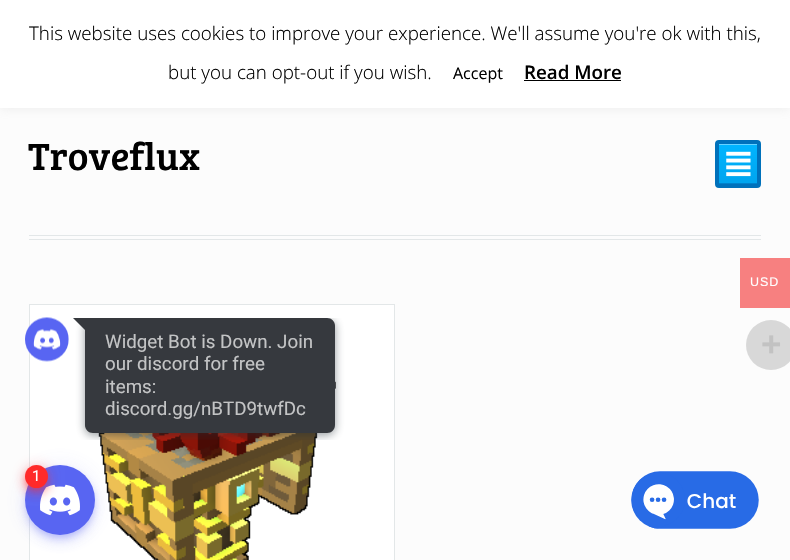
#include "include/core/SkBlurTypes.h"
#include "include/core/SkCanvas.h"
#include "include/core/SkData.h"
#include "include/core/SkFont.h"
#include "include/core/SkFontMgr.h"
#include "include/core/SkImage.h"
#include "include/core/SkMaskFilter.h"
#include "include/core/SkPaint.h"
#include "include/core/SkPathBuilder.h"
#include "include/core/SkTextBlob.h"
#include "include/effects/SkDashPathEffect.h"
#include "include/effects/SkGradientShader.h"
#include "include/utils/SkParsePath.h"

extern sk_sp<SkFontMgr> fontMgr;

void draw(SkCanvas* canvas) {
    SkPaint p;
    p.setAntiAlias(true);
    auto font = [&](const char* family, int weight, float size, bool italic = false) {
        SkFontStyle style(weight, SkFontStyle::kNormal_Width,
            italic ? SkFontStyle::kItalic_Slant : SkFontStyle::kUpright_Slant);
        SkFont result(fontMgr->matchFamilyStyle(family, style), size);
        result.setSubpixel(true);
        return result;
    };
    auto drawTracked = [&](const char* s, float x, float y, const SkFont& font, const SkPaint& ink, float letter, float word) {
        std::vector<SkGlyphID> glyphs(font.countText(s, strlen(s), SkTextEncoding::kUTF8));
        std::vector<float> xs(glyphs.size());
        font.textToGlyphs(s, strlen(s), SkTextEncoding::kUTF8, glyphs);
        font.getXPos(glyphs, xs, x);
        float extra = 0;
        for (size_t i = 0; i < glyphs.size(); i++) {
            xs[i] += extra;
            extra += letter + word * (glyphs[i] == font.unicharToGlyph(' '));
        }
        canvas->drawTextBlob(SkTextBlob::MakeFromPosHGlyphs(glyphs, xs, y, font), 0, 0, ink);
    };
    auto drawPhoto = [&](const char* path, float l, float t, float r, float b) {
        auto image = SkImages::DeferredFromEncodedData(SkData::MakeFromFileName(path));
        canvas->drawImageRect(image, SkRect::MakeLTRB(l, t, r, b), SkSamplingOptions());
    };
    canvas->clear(0xFFFCFCFC);
    p.setColor(0x4DACABAB);
    p.setMaskFilter(SkMaskFilter::MakeBlur(kNormal_SkBlurStyle, 6));
    canvas->drawRect(SkRect::MakeLTRB(0, -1, 790, 106), p);
    p.setMaskFilter(nullptr);
    p.setColor(0xFFFFFFFF);
    canvas->drawRect(SkRect::MakeLTRB(0, 0, 790, 108), p);
    auto font1 = font("Open Sans", 300, 18.75f);
    p.setColor(0xFF000000);
    canvas->drawString("This website uses cookies to improve your experience. We'll assume you're ok with this,", 29, 40, font1, p);
    canvas->drawString("but you can opt-out if you wish.", 168, 79, font1, p);
    auto font2 = font("Open Sans", 400, 16);
    canvas->drawString("Accept", 453, 79, font2, p);
    auto font3 = font("Open Sans", 600, 18.75f);
    canvas->drawString("Read More", 524, 79, font3, p);
    {
        const struct { float l, t, r, b; SkColor color; } items[] = {
            {524, 80, 621, 81, 0xFF000000},
            {29, 235, 761, 236, 0xFFE3E7E8},
            {29, 239, 761, 240, 0xFFE3E7E8},
        };
        for (auto [l, t, r, b, color] : items) {
            p.setColor(color);
            canvas->drawRect(SkRect::MakeLTRB(l, t, r, b), p);
        }
    }
    auto font4 = font("Bree Serif", 400, 39.25f);
    p.setColor(0xFF000000);
    canvas->drawString("Troveflux", 28, 170, font4, p);
    {
        const SkColor colors[] = {0xFF00B5FF, 0xFF00A4EE};
        const float stops[] = {0, 1};
        const SkPoint ends[] = {{738, 144}, {738, 184}};
        p.setShader(SkGradientShader::MakeLinear(ends, colors, stops, 2, SkTileMode::kClamp));
        p.setAlpha(255);
    }
    canvas->drawRect(SkRect::MakeLTRB(719, 145, 757, 183), p);
    p.setShader(nullptr);
    p.setColor(0xFF0082CC);
    canvas->drawRect(SkRect::MakeLTRB(719, 183, 758, 184), p);
    p.setColor(0xFF66D3FF);
    canvas->drawRect(SkRect::MakeLTRB(719, 144, 758, 145), p);
    p.setStyle(SkPaint::kStroke_Style);
    p.setStrokeWidth(4);
    p.setColor(0xFF0071BB);
    canvas->drawRoundRect(SkRect::MakeLTRB(717, 142, 759, 186), 2, 2, p);
    drawPhoto("media/1.png", 726, 151, 751, 177);
    p.setStyle(SkPaint::kFill_Style);
    p.setColor(0xFFFFFFFF);
    canvas->drawRect(SkRect::MakeLTRB(29.5f, 304.5f, 394.5f, 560.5f), p);
    p.setStyle(SkPaint::kStroke_Style);
    p.setStrokeWidth(1);
    p.setColor(0xFFE3E7E8);
    canvas->drawRect(SkRect::MakeLTRB(29.5f, 304.5f, 394.5f, 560.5f), p);
    drawPhoto("media/2.png", 98, 381, 336, 560);
    p.setStyle(SkPaint::kFill_Style);
    p.setColor(0xFFF78080);
    canvas->drawRect(SkRect::MakeLTRB(740, 258, 790, 308), p);
    auto font5 = font("Liberation Sans", 400, 12.5f);
    p.setColor(0xFFFFFFFF);
    drawTracked("USD", 750, 286, font5, p, 1, 0);
    p.setColor(0xFFE8E8E8);
    canvas->drawCircle(771, 345, 25, p);
    auto font6 = font("Liberation Sans", 700, 35);
    p.setColor(0xFFCCCCCC);
    canvas->drawString("+", 761, 356, font6, p);
    p.setColor(0x33999999);
    canvas->drawCircle(771, 345, 25, p);
    drawPhoto("media/3.png", 25, 317, 69, 362);
    canvas->save();
    canvas->clipRect(SkRect::MakeLTRB(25, 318, 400, 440));
    p.setColor(0x80232F35);
    p.setMaskFilter(SkMaskFilter::MakeBlur(kNormal_SkBlurStyle, 5));
    canvas->drawRoundRect(SkRect::MakeLTRB(85, 320, 335, 435), 8, 8, p);
    p.setMaskFilter(nullptr);
    canvas->restore();
    p.setColor(0xFF36393E);
    canvas->drawPath(SkPathBuilder().moveTo(85, 318).lineTo(327, 318).cubicTo(331.5f, 318, 335, 321.5f, 335, 326).lineTo(335, 425).cubicTo(335, 429.5f, 331.5f, 433, 327, 433).lineTo(93, 433).cubicTo(88.5f, 433, 85, 429.5f, 85, 425).close().detach(), p);
    canvas->save();
    canvas->clipRect(SkRect::MakeLTRB(25, 318, 400, 440));
    canvas->drawPath(SkPathBuilder().moveTo(72.5f, 317.5f).lineTo(85, 317.5f).lineTo(85, 330).close().detach(), p);
    canvas->restore();
    auto font7 = font("Roboto", 400, 18.75f);
    p.setColor(0xFFC3C4C5);
    {
        const struct { const char* s; float x, y; } items[] = {
            {"Widget Bot is Down. Join", 105, 348},
            {"our discord for free", 105, 370},
            {"items:", 105, 393},
            {"discord.gg/nBTD9twfDc", 105, 415},
        };
        for (auto [s, x, y] : items) {
            canvas->drawString(s, x, y, font7, p);
        }
    }
    p.setColor(0x1F5865F2);
    p.setMaskFilter(SkMaskFilter::MakeBlur(kNormal_SkBlurStyle, 11));
    canvas->drawRoundRect(SkRect::MakeLTRB(25, 466, 95, 536), 35, 35, p);
    p.setMaskFilter(nullptr);
    p.setColor(0x245865F2);
    p.setMaskFilter(SkMaskFilter::MakeBlur(kNormal_SkBlurStyle, 6));
    canvas->drawRoundRect(SkRect::MakeLTRB(25, 473, 95, 543), 35, 35, p);
    p.setMaskFilter(nullptr);
    p.setColor(0x4D5865F2);
    p.setMaskFilter(SkMaskFilter::MakeBlur(kNormal_SkBlurStyle, 3));
    canvas->drawRoundRect(SkRect::MakeLTRB(26, 470, 94, 538), 34, 34, p);
    p.setMaskFilter(nullptr);
    p.setColor(0xFF5865F2);
    canvas->drawCircle(60, 500, 35, p);
    drawPhoto("media/4.png", 40, 484, 80, 516);
    p.setColor(0x38FF2A2A);
    p.setMaskFilter(SkMaskFilter::MakeBlur(kNormal_SkBlurStyle, 7.5f));
    canvas->drawRoundRect(SkRect::MakeLTRB(25, 466, 48, 489), 11.5f, 11.5f, p);
    p.setMaskFilter(nullptr);
    p.setColor(0x61FF2A2A);
    p.setMaskFilter(SkMaskFilter::MakeBlur(kNormal_SkBlurStyle, 5.5f));
    canvas->drawRoundRect(SkRect::MakeLTRB(25, 470, 48, 493), 11.5f, 11.5f, p);
    p.setMaskFilter(nullptr);
    p.setMaskFilter(SkMaskFilter::MakeBlur(kNormal_SkBlurStyle, 3));
    canvas->drawRoundRect(SkRect::MakeLTRB(26, 470, 46, 490), 10, 10, p);
    p.setMaskFilter(nullptr);
    p.setColor(0xFFFF2A2A);
    canvas->drawCircle(36.5f, 476.5f, 11.5f, p);
    auto font8 = font("Roboto", 400, 15);
    p.setColor(0xFFFFFFFF);
    canvas->drawString("1", 32, 481, font8, p);
    drawPhoto("media/5.png", 631, 471, 759, 529);
}
